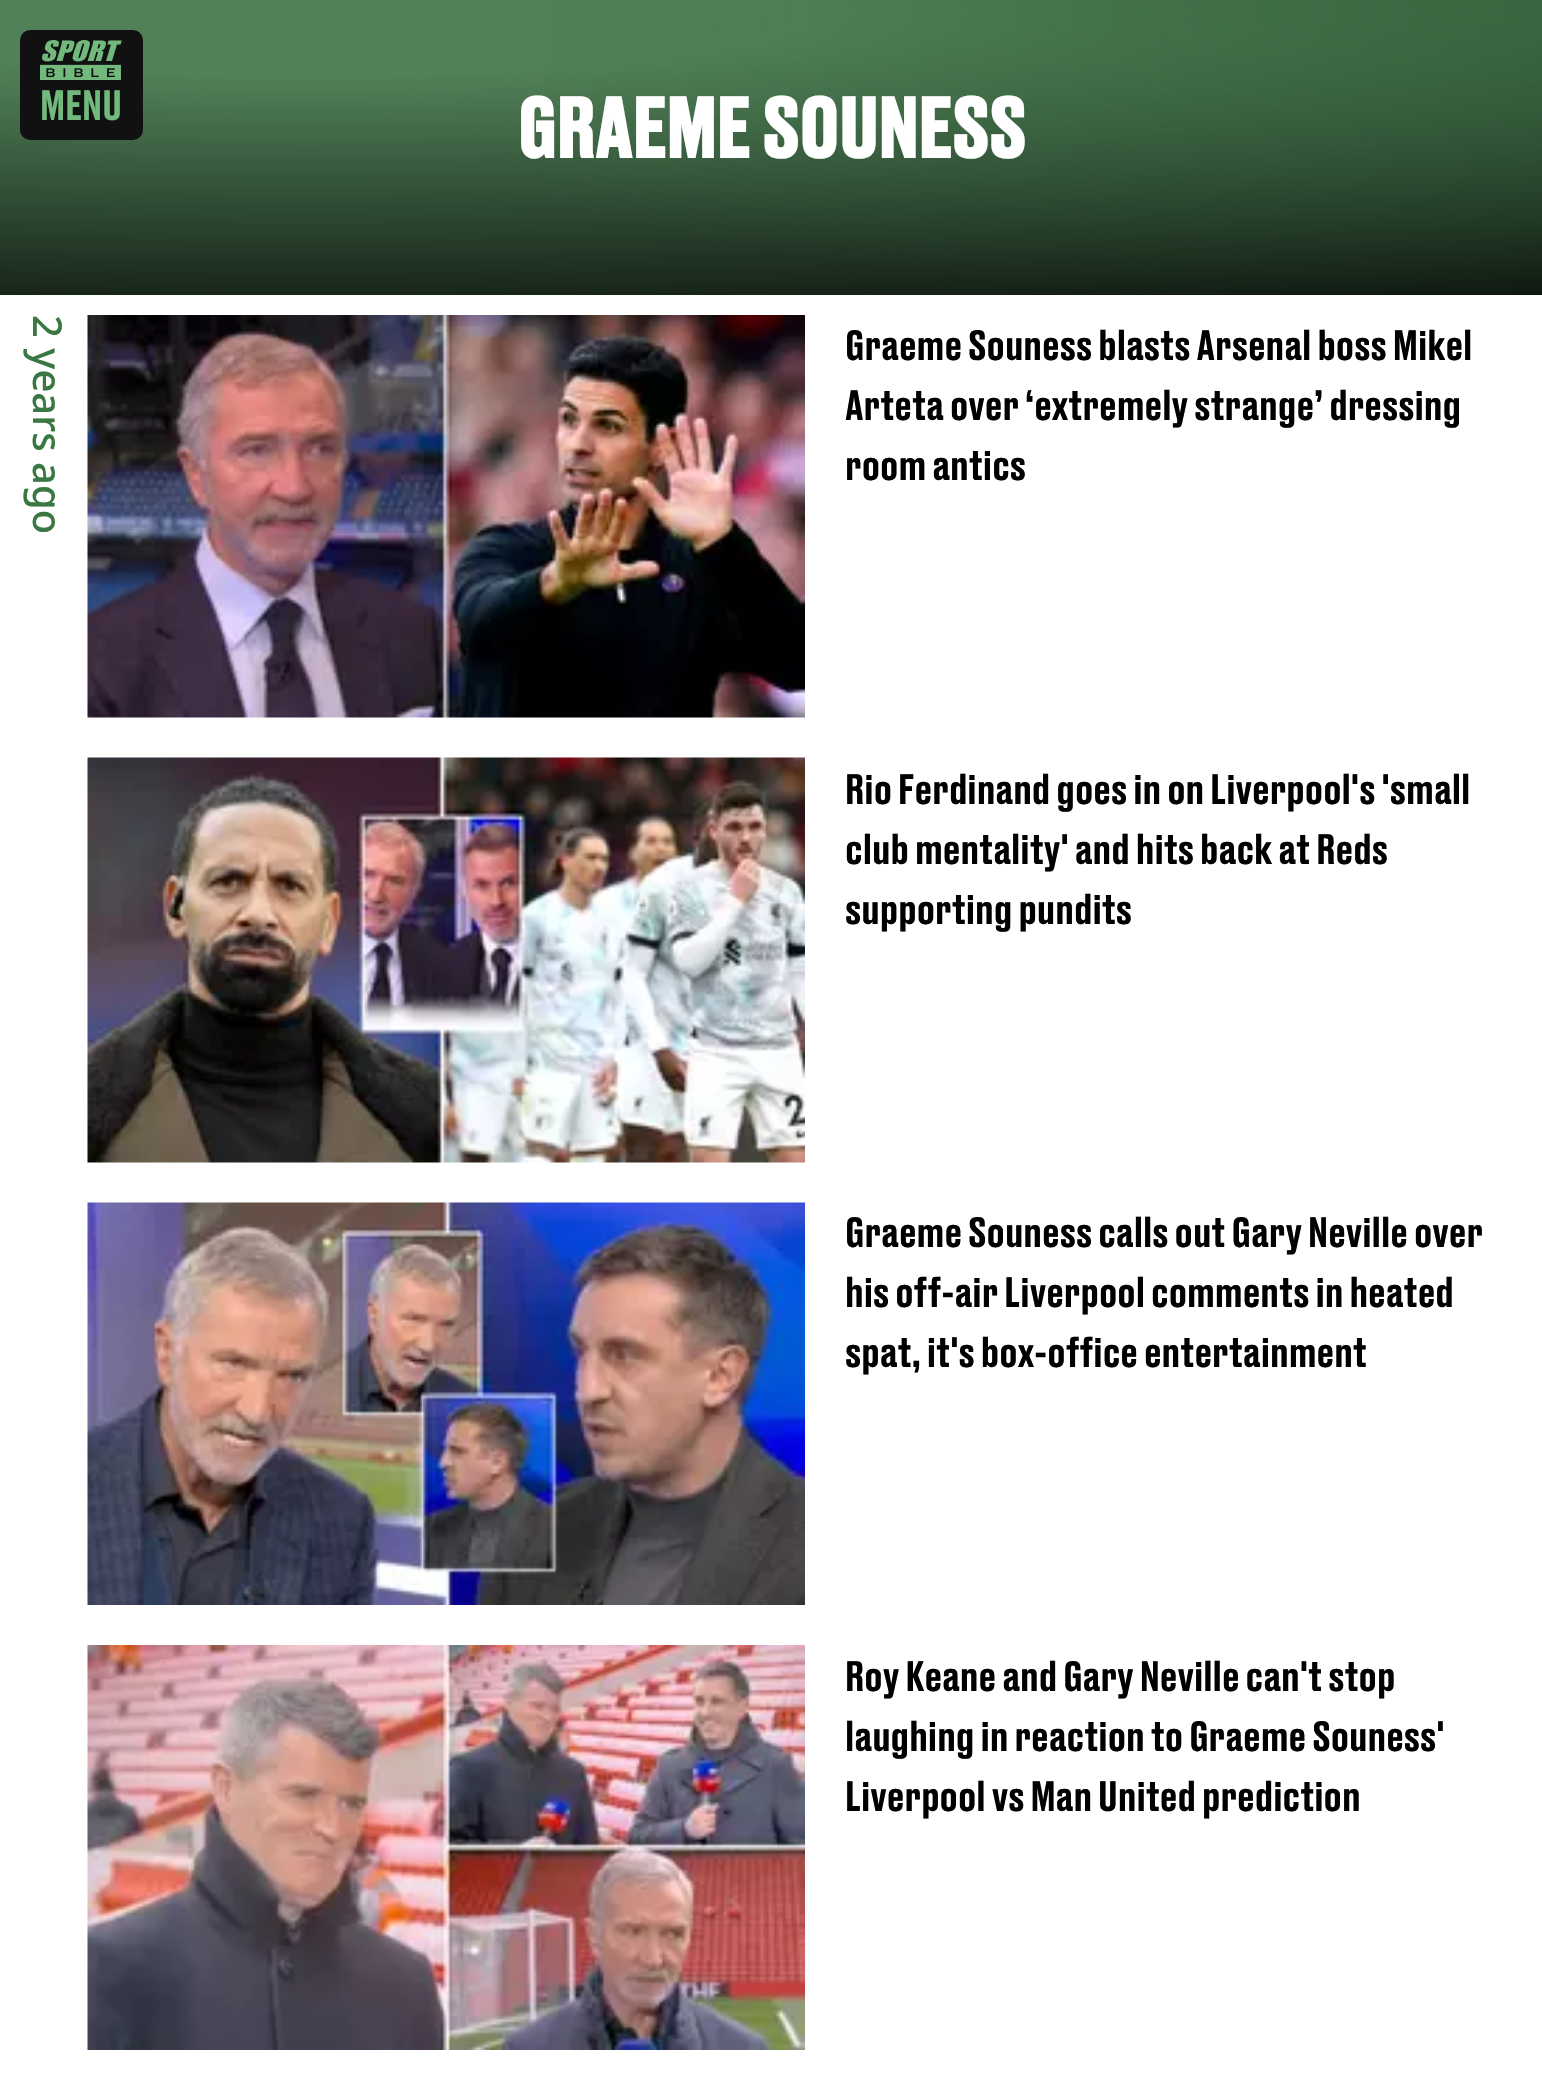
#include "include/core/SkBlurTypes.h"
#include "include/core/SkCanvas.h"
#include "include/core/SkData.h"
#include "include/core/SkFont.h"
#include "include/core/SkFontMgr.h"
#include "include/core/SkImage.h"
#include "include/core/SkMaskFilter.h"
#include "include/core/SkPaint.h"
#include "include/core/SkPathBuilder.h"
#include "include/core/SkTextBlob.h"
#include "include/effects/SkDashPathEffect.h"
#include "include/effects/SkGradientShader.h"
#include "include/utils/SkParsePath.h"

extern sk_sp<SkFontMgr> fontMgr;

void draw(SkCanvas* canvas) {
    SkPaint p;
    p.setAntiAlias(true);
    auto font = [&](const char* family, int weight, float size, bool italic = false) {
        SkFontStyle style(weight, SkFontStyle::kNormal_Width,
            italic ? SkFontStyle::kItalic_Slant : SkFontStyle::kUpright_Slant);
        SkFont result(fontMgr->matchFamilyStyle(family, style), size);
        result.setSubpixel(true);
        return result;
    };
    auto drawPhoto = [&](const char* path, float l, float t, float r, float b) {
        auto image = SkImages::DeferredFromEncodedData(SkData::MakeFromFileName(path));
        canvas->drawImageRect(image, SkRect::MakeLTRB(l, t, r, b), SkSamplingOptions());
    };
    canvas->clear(0xFFFFFFFF);
    {
        const SkColor colors[] = {0xFF518158, 0xFF000000};
        const float stops[] = {0.17f, 1};
        SkMatrix m = SkMatrix::Translate(309, 12).preScale(2901, 375);
        p.setShader(SkGradientShader::MakeRadial({0, 0}, 1, colors, stops, 2, SkTileMode::kClamp, 0, &m));
        p.setAlpha(255);
    }
    canvas->drawRect(SkRect::MakeLTRB(0, 0, 1542, 295), p);
    p.setShader(nullptr);
    p.setColor(0xFF111111);
    canvas->drawRoundRect(SkRect::MakeLTRB(20, 30, 143, 140), 10, 10, p);
    drawPhoto("media/1.png", 40, 40, 122, 80);
    auto font1 = font("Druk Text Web", 500, 40);
    p.setColor(0xFF72B97D);
    canvas->drawString("MENU", 40, 120, font1, p);
    {
        const SkColor colors[] = {0x66397843, 0x00397843};
        const float stops[] = {0.02f, 1};
        SkMatrix m = SkMatrix::Translate(1543, 11).preScale(1290, 303);
        p.setShader(SkGradientShader::MakeRadial({0, 0}, 1, colors, stops, 2, SkTileMode::kClamp, 0, &m));
        p.setAlpha(255);
    }
    canvas->drawRect(SkRect::MakeLTRB(546, 0, 1542, 293), p);
    auto font2 = font("Druk Text Web", 700, 80);
    p.setShader(nullptr);
    p.setColor(0xFFFFFFFF);
    canvas->drawString("GRAEME SOUNESS", 517, 158, font2, p);
    auto font3 = font("Noto Sans", 500, 40);
    p.setColor(0xFF397843);
    canvas->save();
    canvas->rotate(90, 33, 315);
    canvas->drawString("2 years ago", 33, 315, font3, p);
    canvas->restore();
    drawPhoto("media/2.png", 87, 315, 805, 718);
    p.setColor(0xFF000000);
    {
        const struct { const char* s; float x, y; } items[] = {
            {"Graeme Souness blasts Arsenal boss Mikel", 845, 360},
            {"Arteta over ‘extremely strange’ dressing", 845, 420},
            {"room antics", 845, 480},
        };
        for (auto [s, x, y] : items) {
            canvas->drawString(s, x, y, font1, p);
        }
    }
    drawPhoto("media/3.png", 87, 757, 805, 1163);
    {
        const struct { const char* s; float x, y; } items[] = {
            {"Rio Ferdinand goes in on Liverpool's 'small", 845, 804},
            {"club mentality' and hits back at Reds", 845, 864},
            {"supporting pundits", 845, 924},
        };
        for (auto [s, x, y] : items) {
            canvas->drawString(s, x, y, font1, p);
        }
    }
    drawPhoto("media/4.png", 87, 1202, 805, 1605);
    {
        const struct { const char* s; float x, y; } items[] = {
            {"Graeme Souness calls out Gary Neville over", 845, 1247},
            {"his off-air Liverpool comments in heated", 845, 1307},
            {"spat, it's box-office entertainment", 845, 1367},
        };
        for (auto [s, x, y] : items) {
            canvas->drawString(s, x, y, font1, p);
        }
    }
    drawPhoto("media/5.png", 87, 1645, 805, 2050);
    {
        const struct { const char* s; float x, y; } items[] = {
            {"Roy Keane and Gary Neville can't stop", 845, 1691},
            {"laughing in reaction to Graeme Souness'", 845, 1751},
            {"Liverpool vs Man United prediction", 845, 1811},
        };
        for (auto [s, x, y] : items) {
            canvas->drawString(s, x, y, font1, p);
        }
    }
}
